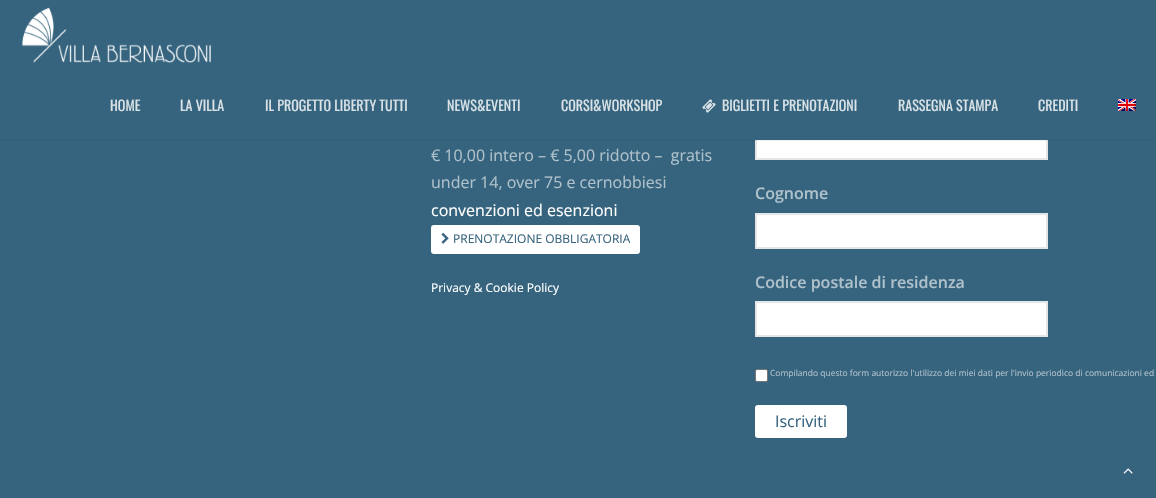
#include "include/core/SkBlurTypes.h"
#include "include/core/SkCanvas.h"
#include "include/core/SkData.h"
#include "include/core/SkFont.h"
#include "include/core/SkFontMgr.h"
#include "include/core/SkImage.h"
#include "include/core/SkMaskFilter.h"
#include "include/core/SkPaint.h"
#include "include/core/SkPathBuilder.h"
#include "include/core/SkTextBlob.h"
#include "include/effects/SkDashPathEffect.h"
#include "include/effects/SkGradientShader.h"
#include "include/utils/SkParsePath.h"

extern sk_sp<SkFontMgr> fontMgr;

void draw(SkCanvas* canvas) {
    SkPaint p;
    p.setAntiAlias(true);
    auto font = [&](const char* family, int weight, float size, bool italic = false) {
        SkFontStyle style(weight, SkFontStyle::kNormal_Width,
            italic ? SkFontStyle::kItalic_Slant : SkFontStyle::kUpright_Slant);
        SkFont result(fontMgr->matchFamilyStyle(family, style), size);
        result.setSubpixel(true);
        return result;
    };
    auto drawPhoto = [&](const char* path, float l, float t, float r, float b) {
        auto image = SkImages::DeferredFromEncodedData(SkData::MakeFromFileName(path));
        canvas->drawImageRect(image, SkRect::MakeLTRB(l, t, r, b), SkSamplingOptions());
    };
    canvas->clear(0xFF36647E);
    p.setColor(0xFFFFFFFF);
    canvas->drawRect(SkRect::MakeLTRB(757, 140, 1046, 158), p);
    p.setStyle(SkPaint::kStroke_Style);
    p.setStrokeWidth(2);
    p.setColor(0xFFE6E6E6);
    canvas->drawRect(SkRect::MakeLTRB(756, 125, 1047, 159), p);
    p.setStyle(SkPaint::kFill_Style);
    p.setColor(0x0F000000);
    canvas->drawRect(SkRect::MakeLTRB(0, 140, 1156, 141), p);
    p.setColor(0xFF36647E);
    canvas->drawRect(SkRect::MakeLTRB(755, 124, 1048, 140), p);
    drawPhoto("media/1.png", 22, 7, 211, 63);
    auto font1 = font("Oswald", 400, 14);
    p.setColor(0xFFD9E2E6);
    {
        const struct { const char* s; float x, y; } items[] = {
            {"HOME", 110, 111},
            {"LA VILLA", 180, 111},
            {"IL PROGETTO LIBERTY TUTTI", 265, 111},
            {"NEWS&EVENTI", 447, 111},
            {"CORSI&WORKSHOP", 561, 111},
        };
        for (auto [s, x, y] : items) {
            canvas->drawString(s, x, y, font1, p);
        }
    }
    drawPhoto("media/2.png", 702, 99, 716, 113);
    {
        const struct { const char* s; float x, y; } items[] = {
            {"BIGLIETTI E PRENOTAZIONI", 722, 111},
            {"RASSEGNA STAMPA", 898, 111},
            {"CREDITI", 1038, 111},
        };
        for (auto [s, x, y] : items) {
            canvas->drawString(s, x, y, font1, p);
        }
    }
    drawPhoto("media/3.png", 1118, 99, 1136, 111);
    auto font2 = font("Open Sans", 400, 16);
    p.setColor(0xFFAFC1CB);
    canvas->drawString("€ 10,00 intero – € 5,00 ridotto –  gratis", 431, 161, font2, p);
    canvas->drawString("under 14, over 75 e cernobbiesi", 431, 188, font2, p);
    p.setColor(0xFFFFFFFF);
    canvas->drawString("convenzioni ed esenzioni", 431, 216, font2, p);
    canvas->drawRoundRect(SkRect::MakeLTRB(431, 225, 640, 254), 3, 3, p);
    drawPhoto("media/4.png", 441, 232, 449, 244);
    auto font3 = font("Open Sans", 400, 12);
    p.setColor(0xFF36647E);
    canvas->drawString("PRENOTAZIONE OBBLIGATORIA", 453, 243, font3, p);
    p.setColor(0xFFFFFFFF);
    canvas->drawString("Privacy & Cookie Policy", 431, 292, font3, p);
    auto font4 = font("Open Sans", 600, 16);
    p.setColor(0xFFAFC1CB);
    canvas->drawString("Cognome", 755, 199, font4, p);
    p.setColor(0xFFFFFFFF);
    canvas->drawRect(SkRect::MakeLTRB(756, 214, 1047, 248), p);
    p.setStyle(SkPaint::kStroke_Style);
    p.setColor(0xFFE6E6E6);
    canvas->drawRect(SkRect::MakeLTRB(756, 214, 1047, 248), p);
    p.setStyle(SkPaint::kFill_Style);
    p.setColor(0xFFAFC1CB);
    canvas->drawString("Codice postale di residenza", 755, 288, font4, p);
    p.setColor(0xFFFFFFFF);
    canvas->drawRect(SkRect::MakeLTRB(756, 302, 1047, 336), p);
    p.setStyle(SkPaint::kStroke_Style);
    p.setColor(0xFFE6E6E6);
    canvas->drawRect(SkRect::MakeLTRB(756, 302, 1047, 336), p);
    p.setStyle(SkPaint::kFill_Style);
    p.setColor(0xFFFFFFFF);
    canvas->drawRoundRect(SkRect::MakeLTRB(755.5f, 369.5f, 767.5f, 381.5f), 1.5f, 1.5f, p);
    p.setStyle(SkPaint::kStroke_Style);
    p.setStrokeWidth(1);
    p.setColor(0xFF767676);
    canvas->drawRoundRect(SkRect::MakeLTRB(755.5f, 369.5f, 767.5f, 381.5f), 1.5f, 1.5f, p);
    auto font5 = font("Open Sans", 400, 8.5f);
    p.setStyle(SkPaint::kFill_Style);
    p.setColor(0xFFAFC1CB);
    canvas->drawString("Compilando questo form autorizzo l'utilizzo dei miei dati per l'invio periodico di comunicazioni ed", 770, 376, font5, p);
    p.setColor(0xFFFFFFFF);
    canvas->drawRoundRect(SkRect::MakeLTRB(755, 405, 847, 438), 3, 3, p);
    p.setColor(0xFF36647E);
    canvas->drawString("Iscriviti", 775, 427, font2, p);
    drawPhoto("media/5.png", 1123, 468, 1133, 474);
}
